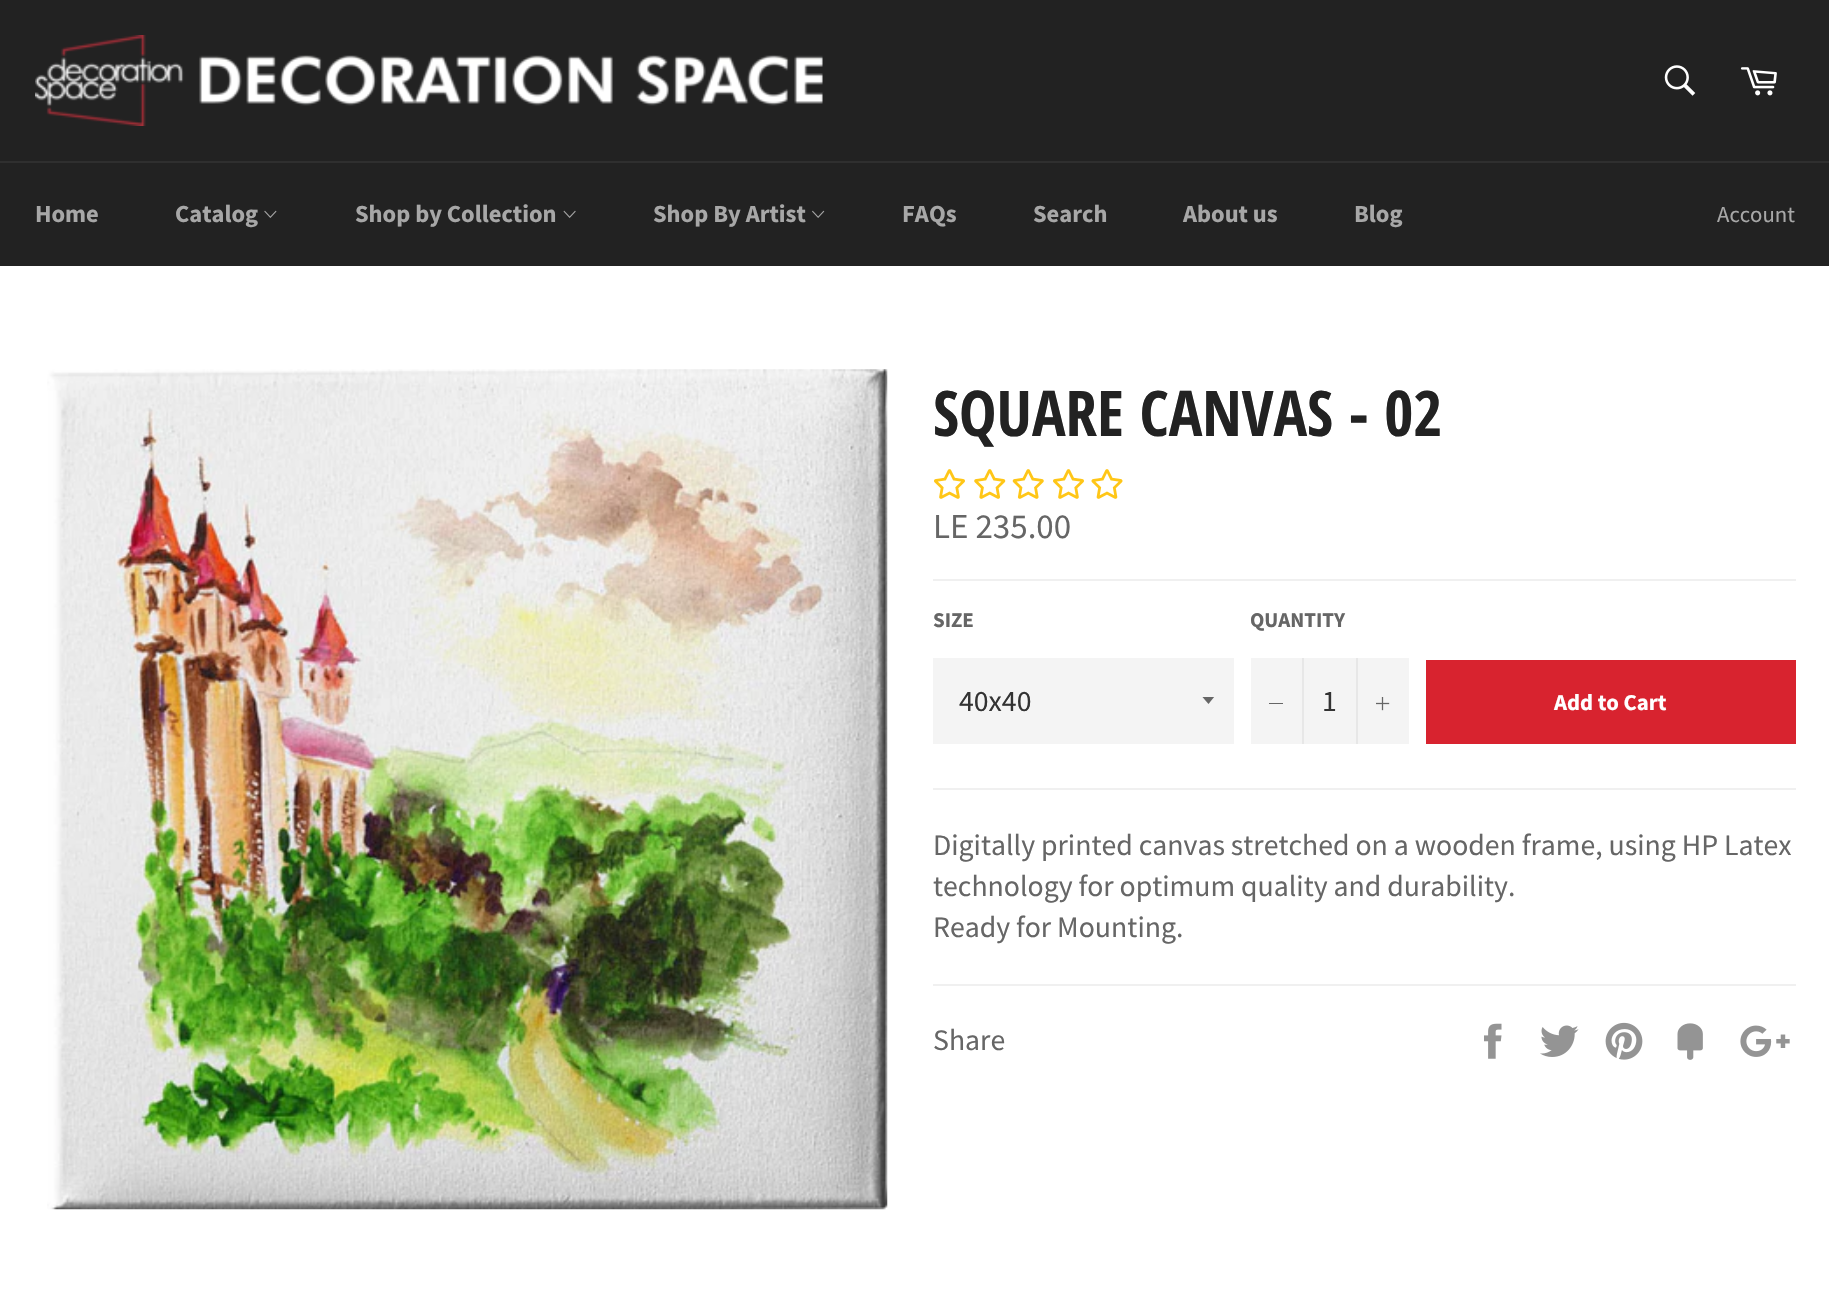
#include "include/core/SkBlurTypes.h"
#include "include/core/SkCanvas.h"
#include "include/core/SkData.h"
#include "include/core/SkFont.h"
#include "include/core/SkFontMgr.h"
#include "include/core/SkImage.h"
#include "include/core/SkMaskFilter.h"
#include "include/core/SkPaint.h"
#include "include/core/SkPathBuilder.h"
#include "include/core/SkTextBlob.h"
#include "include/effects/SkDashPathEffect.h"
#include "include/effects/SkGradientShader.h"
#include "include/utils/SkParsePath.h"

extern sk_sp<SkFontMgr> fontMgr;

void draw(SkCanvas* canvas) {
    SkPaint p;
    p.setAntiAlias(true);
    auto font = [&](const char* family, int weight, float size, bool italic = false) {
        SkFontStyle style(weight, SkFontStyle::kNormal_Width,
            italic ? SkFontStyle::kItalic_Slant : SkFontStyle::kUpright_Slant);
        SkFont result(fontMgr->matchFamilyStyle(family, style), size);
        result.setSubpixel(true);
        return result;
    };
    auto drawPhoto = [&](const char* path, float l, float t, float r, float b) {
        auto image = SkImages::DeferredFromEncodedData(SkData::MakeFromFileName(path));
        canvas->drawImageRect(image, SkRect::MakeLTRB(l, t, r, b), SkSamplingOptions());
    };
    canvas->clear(0xFFFFFFFF);
    p.setColor(0xFF222222);
    canvas->drawRect(SkRect::MakeLTRB(0, 0, 1829, 161), p);
    drawPhoto("media/1.png", 35, 35, 823, 126);
    drawPhoto("media/2.png", 1664, 65, 1696, 96);
    drawPhoto("media/3.png", 1740, 67, 1777, 96);
    canvas->drawRect(SkRect::MakeLTRB(0, 163, 1829, 266), p);
    p.setColor(0xFF2F2F2F);
    canvas->drawRect(SkRect::MakeLTRB(0, 161, 1829, 163), p);
    auto font1 = font("Source Sans Pro", 700, 24.5f);
    p.setColor(0xFFA7A7A7);
    canvas->drawString("Home", 35, 222, font1, p);
    canvas->drawString("Catalog", 175, 222, font1, p);
    drawPhoto("media/4.png", 264, 210, 277, 218);
    canvas->drawString("Shop by Collection", 355, 222, font1, p);
    drawPhoto("media/5.png", 563, 210, 576, 218);
    canvas->drawString("Shop By Artist", 653, 222, font1, p);
    drawPhoto("media/6.png", 812, 210, 825, 218);
    {
        const struct { const char* s; float x, y; } items[] = {
            {"FAQs", 902, 222},
            {"Search", 1033, 222},
            {"About us", 1183, 222},
            {"Blog", 1354, 222},
        };
        for (auto [s, x, y] : items) {
            canvas->drawString(s, x, y, font1, p);
        }
    }
    auto font2 = font("Source Sans Pro", 400, 22.75f);
    canvas->drawString("Account", 1717, 222, font2, p);
    drawPhoto("media/7.png", 47, 369, 888, 1210);
    auto font3 = font("Open Sans Condensed", 700, 63);
    p.setColor(0xFF222222);
    canvas->drawString("SQUARE CANVAS - 02", 933, 436, font3, p);
    drawPhoto("media/8.png", 934, 469, 965, 499);
    drawPhoto("media/9.png", 974, 469, 1006, 499);
    drawPhoto("media/10.png", 1012, 469, 1044, 499);
    drawPhoto("media/8.png", 1053, 469, 1084, 499);
    drawPhoto("media/11.png", 1091, 469, 1123, 499);
    auto font4 = font("Source Sans Pro", 400, 35);
    p.setColor(0xFF666666);
    canvas->drawString("LE 235.00", 933, 538, font4, p);
    p.setColor(0xFFF0F0F0);
    canvas->drawRect(SkRect::MakeLTRB(933, 579, 1796, 581), p);
    auto font5 = font("Source Sans Pro", 700, 21);
    p.setColor(0xFF666666);
    canvas->drawString("SIZE", 933, 627, font5, p);
    p.setColor(0xFFF4F4F4);
    canvas->drawRect(SkRect::MakeLTRB(933, 658, 1234, 744), p);
    canvas->save();
    canvas->clipRect(SkRect::MakeLTRB(1202, 697, 1216, 705));
    p.setColor(0xFF666666);
    canvas->drawPath(SkPathBuilder().moveTo(1202, 696.5f).lineTo(1208.5f, 704).lineTo(1214.5f, 696.5f).close().detach(), p);
    canvas->restore();
    auto font6 = font("Source Sans Pro", 400, 29.75f);
    p.setColor(0xFF333333);
    canvas->drawString("40x40", 959, 711, font6, p);
    p.setColor(0xFF666666);
    canvas->drawString("QUANTITY", 1250, 627, font5, p);
    {
        const struct { float l, t, r, b; SkColor color; } items[] = {
            {1251, 658, 1409, 744, 0xFFF4F4F4},
            {1302, 658, 1304, 744, 0xFFE7E7E7},
            {1269, 703, 1283, 704, 0xFF666666},
        };
        for (auto [l, t, r, b, color] : items) {
            p.setColor(color);
            canvas->drawRect(SkRect::MakeLTRB(l, t, r, b), p);
        }
    }
    p.setColor(0xFF333333);
    canvas->drawString("1", 1322, 711, font6, p);
    p.setColor(0xFFE7E7E7);
    canvas->drawRect(SkRect::MakeLTRB(1356, 658, 1358, 744), p);
    drawPhoto("media/12.png", 1376, 697, 1390, 711);
    p.setColor(0xFFD8232F);
    canvas->drawRect(SkRect::MakeLTRB(1426, 660, 1796, 744), p);
    auto font7 = font("Source Sans Pro", 700, 22.75f);
    p.setColor(0xFFFFFFFF);
    canvas->drawString("Add to Cart", 1554, 710, font7, p);
    p.setColor(0xFFF0F0F0);
    canvas->drawRect(SkRect::MakeLTRB(933, 788, 1796, 790), p);
    p.setColor(0xFF666666);
    {
        const struct { const char* s; float x, y; } items[] = {
            {"Digitally printed canvas stretched on a wooden frame, using HP Latex", 933, 855},
            {"technology for optimum quality and durability.", 933, 896},
            {"Ready for Mounting.", 933, 937},
        };
        for (auto [s, x, y] : items) {
            canvas->drawString(s, x, y, font6, p);
        }
    }
    p.setColor(0xFFF0F0F0);
    canvas->drawRect(SkRect::MakeLTRB(933, 984, 1796, 986), p);
    p.setColor(0xFF666666);
    canvas->drawString("Share", 933, 1050, font6, p);
    drawPhoto("media/13.png", 1484, 1023, 1502, 1059);
    drawPhoto("media/14.png", 1540, 1025, 1579, 1057);
    drawPhoto("media/15.png", 1605, 1022, 1643, 1060);
    drawPhoto("media/16.png", 1677, 1023, 1703, 1060);
    drawPhoto("media/17.png", 1740, 1025, 1790, 1057);
}
